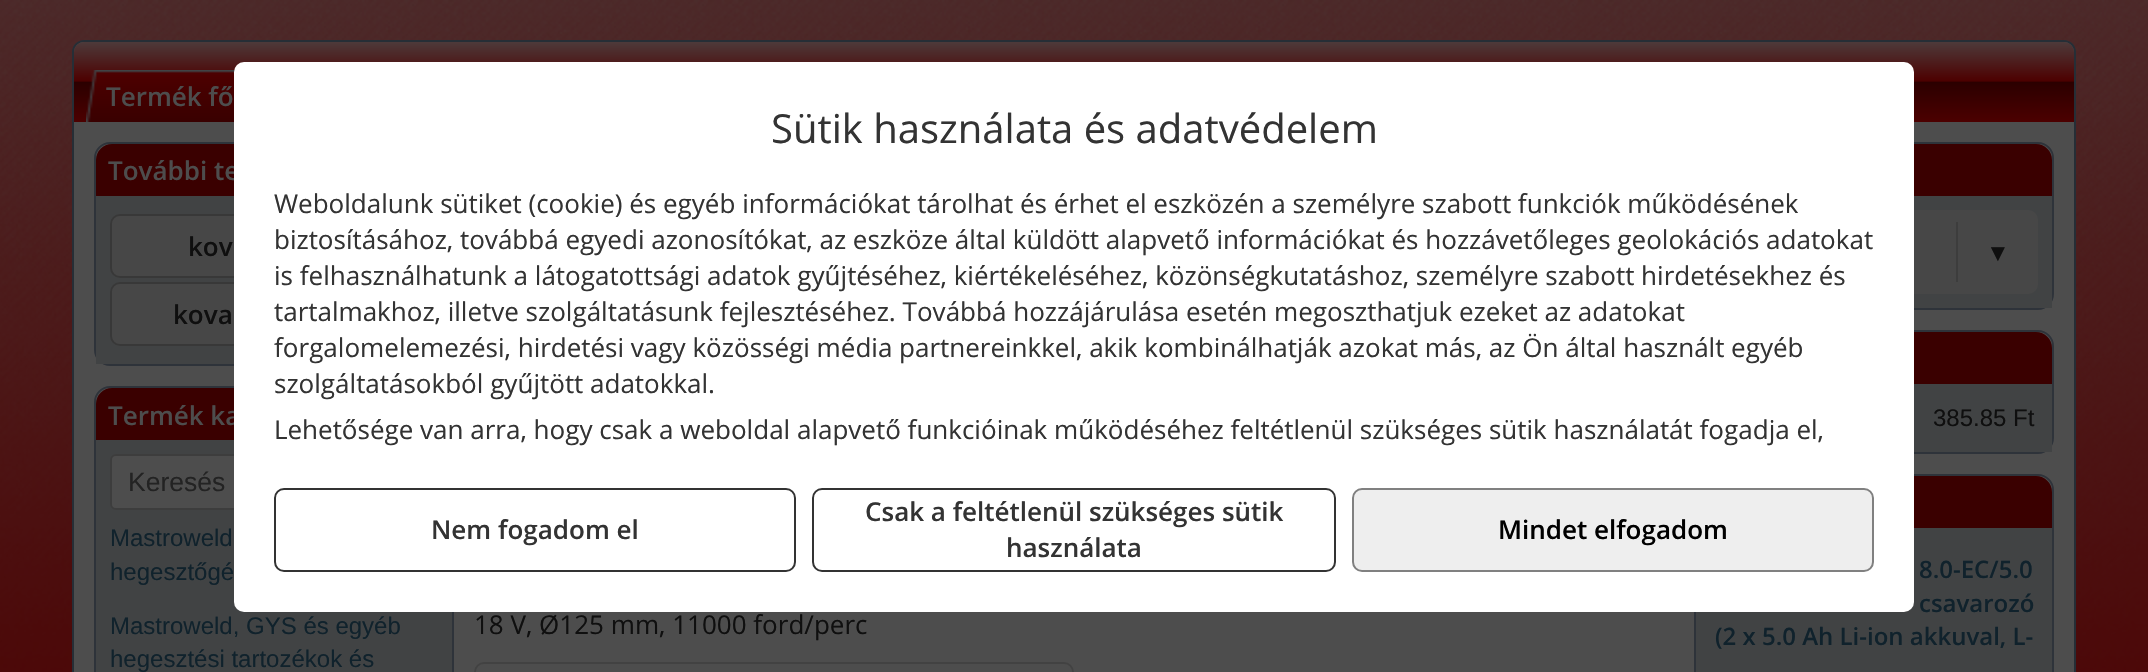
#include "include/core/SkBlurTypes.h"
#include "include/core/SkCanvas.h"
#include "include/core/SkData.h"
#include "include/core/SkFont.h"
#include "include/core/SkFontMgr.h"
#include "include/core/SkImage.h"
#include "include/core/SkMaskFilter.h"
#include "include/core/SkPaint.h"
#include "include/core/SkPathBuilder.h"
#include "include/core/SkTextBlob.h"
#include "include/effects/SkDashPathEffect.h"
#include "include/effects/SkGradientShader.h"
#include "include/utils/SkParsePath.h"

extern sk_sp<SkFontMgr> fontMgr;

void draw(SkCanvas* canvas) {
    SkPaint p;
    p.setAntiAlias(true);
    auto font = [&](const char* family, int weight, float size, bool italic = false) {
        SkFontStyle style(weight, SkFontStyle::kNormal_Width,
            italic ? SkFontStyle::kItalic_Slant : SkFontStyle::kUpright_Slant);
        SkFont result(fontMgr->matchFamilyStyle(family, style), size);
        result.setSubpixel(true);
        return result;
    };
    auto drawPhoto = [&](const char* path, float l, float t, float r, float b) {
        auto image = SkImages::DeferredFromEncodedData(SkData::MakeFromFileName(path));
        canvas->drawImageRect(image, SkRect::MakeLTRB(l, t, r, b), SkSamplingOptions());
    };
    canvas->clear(0xFFFFFFFF);
    drawPhoto("media/1.png", 0, 0, 2148, 672);
    p.setColor(0xFF4D4D4D);
    canvas->drawRoundRect(SkRect::MakeLTRB(73, 41, 2075, 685), 11, 11, p);
    p.setStyle(SkPaint::kStroke_Style);
    p.setStrokeWidth(2);
    p.setColor(0xFF262E36);
    canvas->drawRoundRect(SkRect::MakeLTRB(73, 41, 2075, 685), 11, 11, p);
    p.setStyle(SkPaint::kFill_Style);
    {
        const SkColor colors[] = {0xFF4D3A3A, 0xFF4D0000, 0xFF2B0000, 0xFF4C0000};
        const float stops[] = {0, 0.49f, 0.5f, 1};
        const SkPoint ends[] = {{1074, 42}, {1074, 122}};
        p.setShader(SkGradientShader::MakeLinear(ends, colors, stops, 4, SkTileMode::kClamp));
        p.setAlpha(255);
    }
    canvas->drawPath(SkPathBuilder().moveTo(84, 42).lineTo(2064, 42).cubicTo(2069.5f, 42, 2074, 46.5f, 2074, 52).lineTo(2074, 122).lineTo(74, 122).lineTo(74, 52).cubicTo(74, 46.5f, 78.5f, 42, 84, 42).close().detach(), p);
    drawPhoto("media/2.png", 86, 70, 235, 122);
    auto font1 = font("Open Sans", 600, 26);
    p.setShader(nullptr);
    p.setColor(0xFF4D4D4D);
    canvas->drawString("Termék fő", 106, 106, font1, p);
    p.setStyle(SkPaint::kStroke_Style);
    p.setColor(0xFF2E333A);
    canvas->drawRoundRect(SkRect::MakeLTRB(95, 143, 453, 365), 15, 15, p);
    p.setStyle(SkPaint::kFill_Style);
    p.setColor(0xFF3A0000);
    canvas->drawPath(SkPathBuilder().moveTo(112, 144).lineTo(436, 144).cubicTo(445, 144, 452, 151, 452, 160).lineTo(452, 196).lineTo(96, 196).lineTo(96, 160).cubicTo(96, 151, 103, 144, 112, 144).close().detach(), p);
    p.setColor(0xFF4D4D4D);
    canvas->drawString("További te", 108, 180, font1, p);
    p.setColor(0xFF414344);
    canvas->drawRect(SkRect::MakeLTRB(96, 196, 234, 364), p);
    p.setColor(0xFF474747);
    canvas->drawRoundRect(SkRect::MakeLTRB(111, 215, 437, 277), 9, 9, p);
    p.setStyle(SkPaint::kStroke_Style);
    p.setColor(0xFF383838);
    canvas->drawRoundRect(SkRect::MakeLTRB(111, 215, 437, 277), 9, 9, p);
    p.setStyle(SkPaint::kFill_Style);
    p.setColor(0xFF0F0F0F);
    canvas->drawString("kov", 188, 256, font1, p);
    p.setColor(0xFF474747);
    canvas->drawRoundRect(SkRect::MakeLTRB(111, 283, 437, 345), 9, 9, p);
    p.setStyle(SkPaint::kStroke_Style);
    p.setColor(0xFF383838);
    canvas->drawRoundRect(SkRect::MakeLTRB(111, 283, 437, 345), 9, 9, p);
    p.setStyle(SkPaint::kFill_Style);
    p.setColor(0xFF0F0F0F);
    canvas->drawString("kova", 173, 324, font1, p);
    p.setStyle(SkPaint::kStroke_Style);
    p.setColor(0xFF2E333A);
    canvas->drawRoundRect(SkRect::MakeLTRB(95, 387, 453, 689), 15, 15, p);
    p.setStyle(SkPaint::kFill_Style);
    p.setColor(0xFF3A0000);
    canvas->drawPath(SkPathBuilder().moveTo(112, 388).lineTo(436, 388).cubicTo(445, 388, 452, 395, 452, 404).lineTo(452, 440).lineTo(96, 440).lineTo(96, 404).cubicTo(96, 395, 103, 388, 112, 388).close().detach(), p);
    p.setColor(0xFF4D4D4D);
    canvas->drawString("Termék ka", 108, 425, font1, p);
    p.setColor(0xFF414344);
    canvas->drawRect(SkRect::MakeLTRB(96, 440, 452, 672), p);
    p.setColor(0xFF4D4D4D);
    canvas->drawRoundRect(SkRect::MakeLTRB(111, 455, 437, 509), 5, 5, p);
    p.setStyle(SkPaint::kStroke_Style);
    p.setColor(0xFF3D3D3D);
    canvas->drawRoundRect(SkRect::MakeLTRB(111, 455, 437, 509), 5, 5, p);
    auto font2 = font("Liberation Sans", 400, 26.5f);
    p.setStyle(SkPaint::kFill_Style);
    p.setColor(0xFF232323);
    canvas->drawString("Keresés", 128, 491, font2, p);
    auto font3 = font("Liberation Sans", 400, 24);
    p.setColor(0xFF10222C);
    {
        const struct { const char* s; float x, y; } items[] = {
            {"Mastroweld", 110, 546},
            {"hegesztőgé", 110, 580},
            {"Mastroweld, GYS és egyéb", 110, 634},
            {"hegesztési tartozékok és", 110, 667},
        };
        for (auto [s, x, y] : items) {
            canvas->drawString(s, x, y, font3, p);
        }
    }
    auto font4 = font("Open Sans", 400, 26);
    p.setColor(0xFF0F0F0F);
    canvas->drawString("18 V, Ø125 mm, 11000 ford/perc", 474, 634, font4, p);
    p.setStyle(SkPaint::kStroke_Style);
    p.setColor(0xFF424242);
    canvas->drawRoundRect(SkRect::MakeLTRB(475, 663, 1073, 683), 9, 9, p);
    p.setColor(0xFF2E333A);
    canvas->drawRoundRect(SkRect::MakeLTRB(1695, 143, 2053, 309), 15, 15, p);
    p.setStyle(SkPaint::kFill_Style);
    p.setColor(0xFF3A0000);
    canvas->drawPath(SkPathBuilder().moveTo(1712, 144).lineTo(2036, 144).cubicTo(2045, 144, 2052, 151, 2052, 160).lineTo(2052, 196).lineTo(1696, 196).lineTo(1696, 160).cubicTo(1696, 151, 1703, 144, 1712, 144).close().detach(), p);
    p.setColor(0xFF414344);
    canvas->drawRect(SkRect::MakeLTRB(1914, 196, 2052, 308), p);
    p.setColor(0xFF474747);
    canvas->drawRoundRect(SkRect::MakeLTRB(1710, 210, 2038, 294), 10, 10, p);
    p.setColor(0xFF3D3D3D);
    canvas->drawRect(SkRect::MakeLTRB(1956, 222, 1958, 282), p);
    auto font5 = font("Liberation Serif", 400, 24);
    p.setColor(0xFF0F0F0F);
    canvas->drawString("▼", 1986, 261, font5, p);
    p.setStyle(SkPaint::kStroke_Style);
    p.setColor(0xFF2E333A);
    canvas->drawRoundRect(SkRect::MakeLTRB(1695, 331, 2053, 453), 15, 15, p);
    p.setStyle(SkPaint::kFill_Style);
    p.setColor(0xFF3A0000);
    canvas->drawPath(SkPathBuilder().moveTo(1712, 332).lineTo(2036, 332).cubicTo(2045, 332, 2052, 339, 2052, 348).lineTo(2052, 384).lineTo(1696, 384).lineTo(1696, 348).cubicTo(1696, 339, 1703, 332, 1712, 332).close().detach(), p);
    p.setColor(0xFF414344);
    canvas->drawRect(SkRect::MakeLTRB(1914, 384, 2052, 452), p);
    p.setColor(0xFF0F0F0F);
    canvas->drawString("385.85 Ft", 1933, 426, font3, p);
    p.setStyle(SkPaint::kStroke_Style);
    p.setColor(0xFF2E333A);
    canvas->drawRoundRect(SkRect::MakeLTRB(1695, 475, 2053, 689), 15, 15, p);
    p.setStyle(SkPaint::kFill_Style);
    p.setColor(0xFF3A0000);
    canvas->drawPath(SkPathBuilder().moveTo(1712, 476).lineTo(2036, 476).cubicTo(2045, 476, 2052, 483, 2052, 492).lineTo(2052, 528).lineTo(1696, 528).lineTo(1696, 492).cubicTo(1696, 483, 1703, 476, 1712, 476).close().detach(), p);
    p.setColor(0xFF414344);
    canvas->drawRect(SkRect::MakeLTRB(1696, 528, 2052, 672), p);
    auto font6 = font("Open Sans", 600, 24);
    p.setColor(0xFF10222C);
    {
        const struct { const char* s; float x, y; } items[] = {
            {"8.0-EC/5.0", 1919, 578},
            {"csavarozó", 1919, 612},
            {"(2 x 5.0 Ah Li-ion akkuval, L-", 1715, 645},
        };
        for (auto [s, x, y] : items) {
            canvas->drawString(s, x, y, font6, p);
        }
    }
    p.setColor(0xFFFFFFFF);
    canvas->drawRoundRect(SkRect::MakeLTRB(234, 62, 1914, 612), 10, 10, p);
    auto font7 = font("Open Sans", 400, 40);
    p.setColor(0xFF333333);
    canvas->drawString("Sütik használata és adatvédelem", 771, 143, font7, p);
    {
        const struct { const char* s; float x, y; } items[] = {
            {"Weboldalunk sütiket (cookie) és egyéb információkat tárolhat és érhet el eszközén a személyre szabott funkciók működésének", 274, 213},
            {"biztosításához, továbbá egyedi azonosítókat, az eszköze által küldött alapvető információkat és hozzávetőleges geolokációs adatokat", 274, 249},
            {"is felhasználhatunk a látogatottsági adatok gyűjtéséhez, kiértékeléséhez, közönségkutatáshoz, személyre szabott hirdetésekhez és", 274, 285},
            {"tartalmakhoz, illetve szolgáltatásunk fejlesztéséhez. Továbbá hozzájárulása esetén megoszthatjuk ezeket az adatokat", 274, 321},
            {"forgalomelemezési, hirdetési vagy közösségi média partnereinkkel, akik kombinálhatják azokat más, az Ön által használt egyéb", 274, 357},
            {"szolgáltatásokból gyűjtött adatokkal.", 274, 393},
            {"Lehetősége van arra, hogy csak a weboldal alapvető funkcióinak működéséhez feltétlenül szükséges sütik használatát fogadja el,", 274, 439},
        };
        for (auto [s, x, y] : items) {
            canvas->drawString(s, x, y, font4, p);
        }
    }
    p.setStyle(SkPaint::kStroke_Style);
    canvas->drawRoundRect(SkRect::MakeLTRB(275, 489, 795, 571), 9, 9, p);
    p.setStyle(SkPaint::kFill_Style);
    canvas->drawString("Nem fogadom el", 431, 539, font1, p);
    p.setStyle(SkPaint::kStroke_Style);
    canvas->drawRoundRect(SkRect::MakeLTRB(813, 489, 1335, 571), 9, 9, p);
    p.setStyle(SkPaint::kFill_Style);
    canvas->drawString("Csak a feltétlenül szükséges sütik", 865, 521, font1, p);
    canvas->drawString("használata", 1006, 557, font1, p);
    p.setColor(0xFFEEEEEE);
    canvas->drawRoundRect(SkRect::MakeLTRB(1353, 489, 1873, 571), 9, 9, p);
    p.setStyle(SkPaint::kStroke_Style);
    p.setColor(0xFF808080);
    canvas->drawRoundRect(SkRect::MakeLTRB(1353, 489, 1873, 571), 9, 9, p);
    p.setStyle(SkPaint::kFill_Style);
    p.setColor(0xFF000000);
    canvas->drawString("Mindet elfogadom", 1498, 539, font1, p);
}
